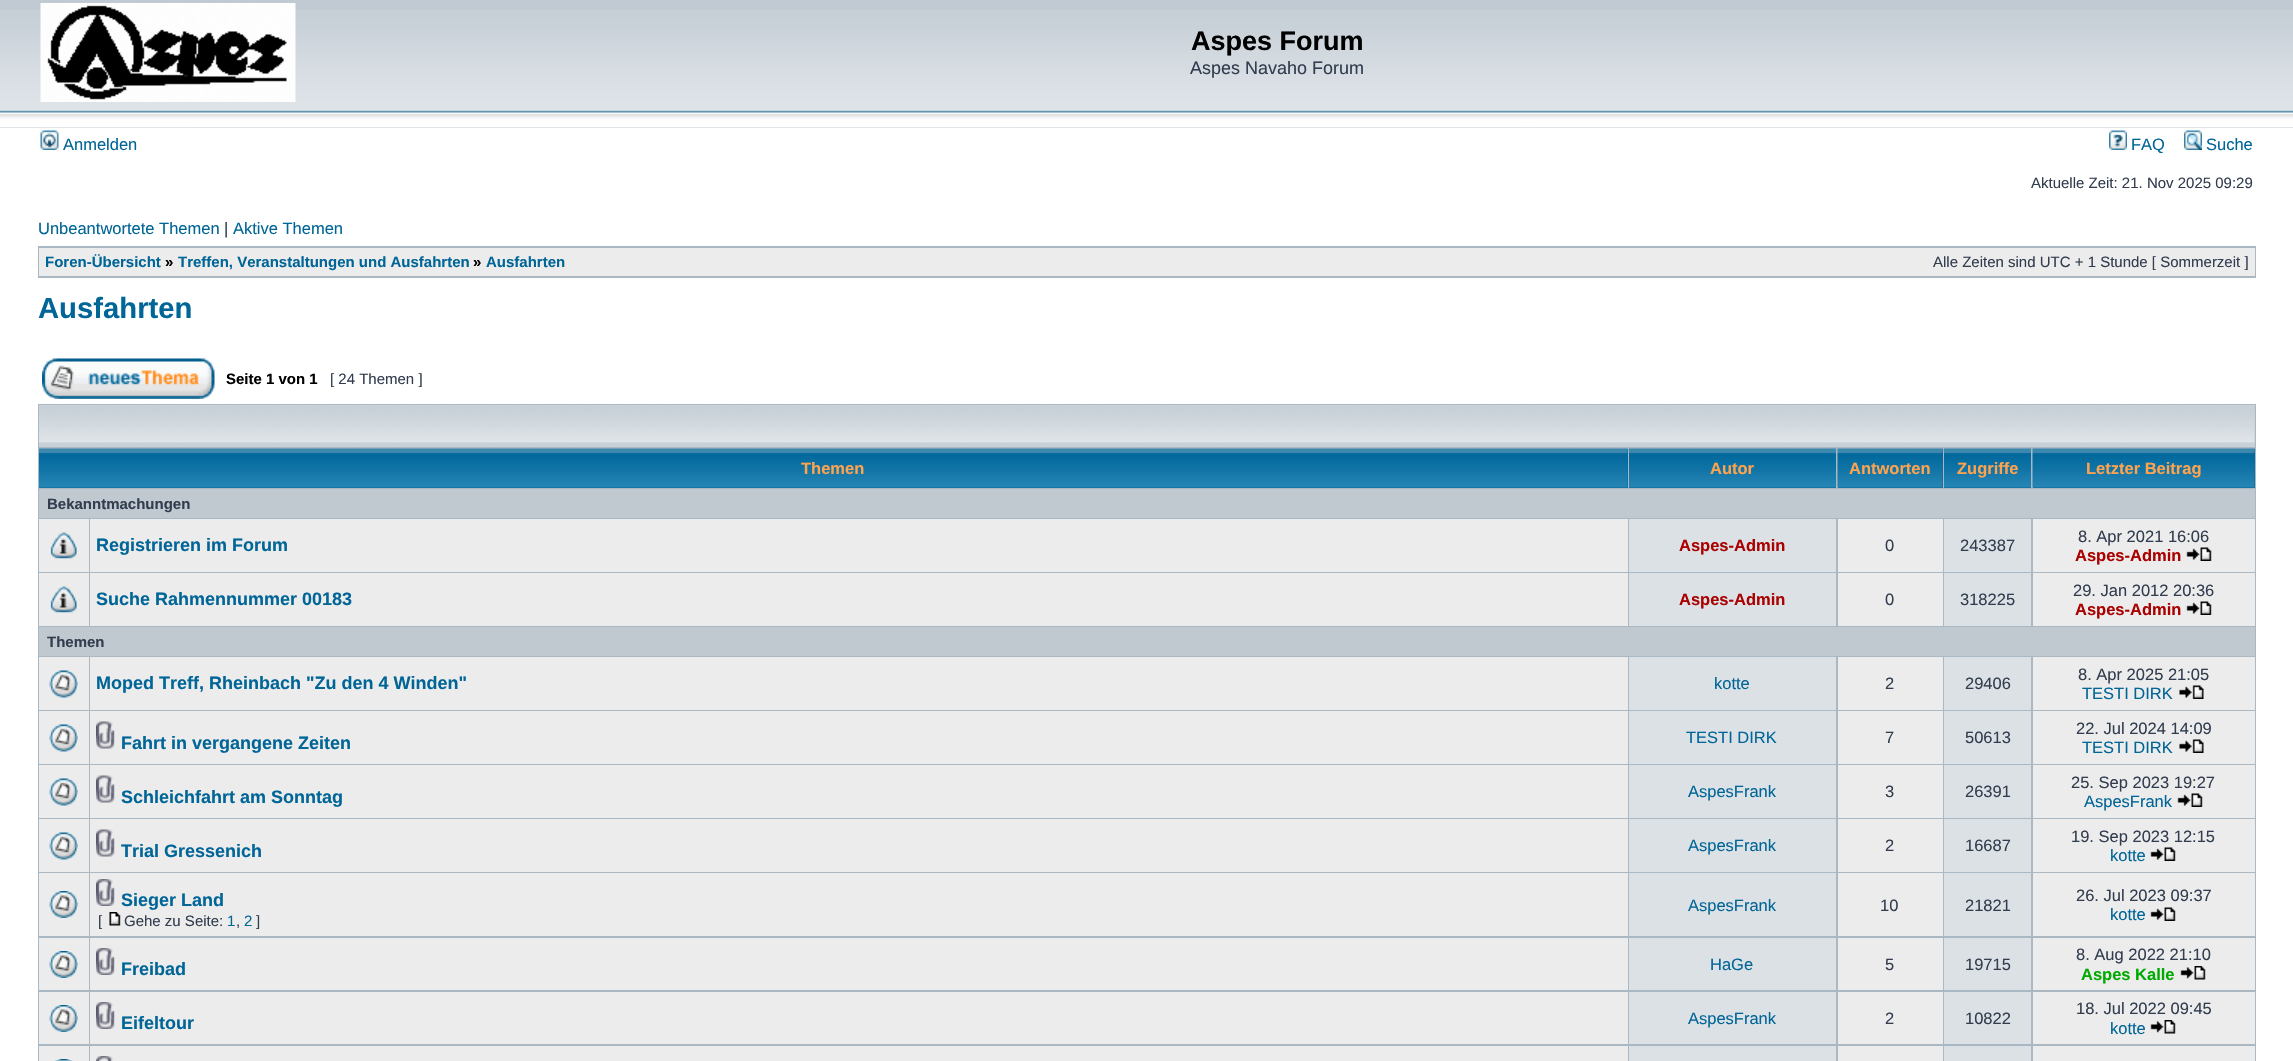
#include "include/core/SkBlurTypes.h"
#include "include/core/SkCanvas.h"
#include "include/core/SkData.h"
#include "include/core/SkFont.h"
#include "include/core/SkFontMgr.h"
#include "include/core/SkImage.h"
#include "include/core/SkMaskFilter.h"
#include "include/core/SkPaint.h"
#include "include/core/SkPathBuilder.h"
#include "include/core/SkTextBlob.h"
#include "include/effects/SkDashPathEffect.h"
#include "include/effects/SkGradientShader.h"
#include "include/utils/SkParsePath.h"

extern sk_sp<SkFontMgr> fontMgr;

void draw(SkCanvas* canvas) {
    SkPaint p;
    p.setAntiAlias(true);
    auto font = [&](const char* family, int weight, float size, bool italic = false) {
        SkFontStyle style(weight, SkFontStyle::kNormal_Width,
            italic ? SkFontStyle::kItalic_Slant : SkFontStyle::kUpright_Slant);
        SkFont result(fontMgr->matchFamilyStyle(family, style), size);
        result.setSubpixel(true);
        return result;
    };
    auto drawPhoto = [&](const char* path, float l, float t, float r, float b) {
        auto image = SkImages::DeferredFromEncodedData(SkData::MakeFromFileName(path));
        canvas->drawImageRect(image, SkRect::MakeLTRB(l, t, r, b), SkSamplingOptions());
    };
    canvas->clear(0xFFFFFFFF);
    p.setColor(0xFFC1CAD2);
    canvas->drawRect(SkRect::MakeLTRB(0, 0, 2293, 128), p);
    drawPhoto("media/1.png", 0, 10, 2293, 128);
    drawPhoto("media/2.png", 40, 3, 296, 102);
    auto font1 = font("Liberation Sans", 700, 27);
    p.setColor(0xFF000000);
    canvas->drawString("Aspes Forum", 1191, 50, font1, p);
    auto font2 = font("Liberation Sans", 400, 18);
    p.setColor(0xFF323D4F);
    canvas->drawString("Aspes Navaho Forum", 1190, 74, font2, p);
    drawPhoto("media/3.png", 40, 130, 59, 150);
    auto font3 = font("Liberation Sans", 400, 16.5f);
    p.setColor(0xFF006597);
    canvas->drawString("Anmelden", 63, 150, font3, p);
    drawPhoto("media/4.png", 2109, 130, 2127, 150);
    canvas->drawString("FAQ", 2131, 150, font3, p);
    drawPhoto("media/5.png", 2184, 130, 2202, 150);
    canvas->drawString("Suche", 2206, 150, font3, p);
    auto font4 = font("Liberation Sans", 400, 15);
    p.setColor(0xFF323D4F);
    canvas->drawString("Aktuelle Zeit: 21. Nov 2025 09:29", 2031, 188, font4, p);
    p.setColor(0xFF006597);
    canvas->drawString("Unbeantwortete Themen", 38, 234, font3, p);
    p.setColor(0xFF323D4F);
    canvas->drawString("|", 224, 234, font3, p);
    p.setColor(0xFF006597);
    canvas->drawString("Aktive Themen", 233, 234, font3, p);
    p.setColor(0xFFA9B8C2);
    canvas->drawRect(SkRect::MakeLTRB(38, 246, 2256, 278), p);
    p.setColor(0xFFECECEC);
    canvas->drawRect(SkRect::MakeLTRB(39, 248, 2255, 276), p);
    auto font5 = font("Liberation Sans", 700, 15);
    p.setColor(0xFF006597);
    canvas->drawString("Foren-Übersicht", 45, 267, font5, p);
    p.setColor(0xFF000000);
    canvas->drawString("»", 165, 267, font5, p);
    p.setColor(0xFF006597);
    canvas->drawString("Treffen, Veranstaltungen und Ausfahrten", 178, 267, font5, p);
    p.setColor(0xFF000000);
    canvas->drawString("»", 473, 267, font5, p);
    p.setColor(0xFF006597);
    canvas->drawString("Ausfahrten", 486, 267, font5, p);
    p.setColor(0xFF323D4F);
    canvas->drawString("Alle Zeiten sind UTC + 1 Stunde [ Sommerzeit ]", 1933, 267, font4, p);
    auto font6 = font("Liberation Sans", 700, 29.25f);
    p.setColor(0xFF006597);
    canvas->drawString("Ausfahrten", 38, 318, font6, p);
    drawPhoto("media/6.png", 42, 358, 215, 399);
    p.setColor(0xFF000000);
    canvas->drawString("Seite 1 von 1", 226, 384, font5, p);
    p.setColor(0xFF323D4F);
    canvas->drawString("[ 24 Themen ]", 330, 384, font4, p);
    p.setColor(0xFFA9B8C2);
    canvas->drawRect(SkRect::MakeLTRB(38, 404, 2256, 1061), p);
    p.setColor(0xFFC7D0D7);
    canvas->drawRect(SkRect::MakeLTRB(39, 405, 2255, 447), p);
    drawPhoto("media/7.png", 39, 405, 2255, 443);
    p.setColor(0xFF006699);
    canvas->drawRect(SkRect::MakeLTRB(39, 449, 1628, 488), p);
    drawPhoto("media/8.png", 39, 448, 1628, 488);
    auto font7 = font("Liberation Sans", 700, 16.5f);
    p.setColor(0xFFFFA34F);
    canvas->drawString("Themen", 801, 474, font7, p);
    p.setColor(0xFF006699);
    canvas->drawRect(SkRect::MakeLTRB(1629, 487, 1836, 488), p);
    drawPhoto("media/9.png", 1629, 448, 1836, 488);
    p.setColor(0xFFFFA34F);
    canvas->drawString("Autor", 1710, 474, font7, p);
    p.setColor(0xFF006699);
    canvas->drawRect(SkRect::MakeLTRB(1838, 449, 1943, 488), p);
    drawPhoto("media/10.png", 1837, 448, 1943, 488);
    p.setColor(0xFFFFA34F);
    canvas->drawString("Antworten", 1849, 474, font7, p);
    p.setColor(0xFF006699);
    canvas->drawRect(SkRect::MakeLTRB(1944, 487, 2031, 488), p);
    drawPhoto("media/11.png", 1944, 448, 2031, 488);
    p.setColor(0xFFFFA34F);
    canvas->drawString("Zugriffe", 1957, 474, font7, p);
    p.setColor(0xFF006699);
    canvas->drawRect(SkRect::MakeLTRB(2033, 449, 2255, 488), p);
    drawPhoto("media/12.png", 2032, 448, 2255, 488);
    p.setColor(0xFFFFA34F);
    canvas->drawString("Letzter Beitrag", 2086, 474, font7, p);
    p.setColor(0xFFC0C8D0);
    canvas->drawRect(SkRect::MakeLTRB(39, 489, 2255, 518), p);
    p.setColor(0xFF323D4F);
    canvas->drawString("Bekanntmachungen", 47, 509, font5, p);
    p.setColor(0xFFECECEC);
    canvas->drawRect(SkRect::MakeLTRB(39, 519, 89, 572), p);
    drawPhoto("media/13.png", 49, 532, 78, 559);
    canvas->drawRect(SkRect::MakeLTRB(90, 519, 1628, 572), p);
    auto font8 = font("Liberation Sans", 700, 18);
    p.setColor(0xFF006597);
    canvas->drawString("Registrieren im Forum", 96, 551, font8, p);
    p.setColor(0xFFDCE1E5);
    canvas->drawRect(SkRect::MakeLTRB(1629, 519, 1836, 572), p);
    p.setColor(0xFFAA0000);
    canvas->drawString("Aspes-Admin", 1679, 551, font7, p);
    p.setColor(0xFFECECEC);
    canvas->drawRect(SkRect::MakeLTRB(1838, 519, 1943, 572), p);
    p.setColor(0xFF323D4F);
    canvas->drawString("0", 1885, 551, font3, p);
    p.setColor(0xFFDCE1E5);
    canvas->drawRect(SkRect::MakeLTRB(1944, 519, 2031, 572), p);
    p.setColor(0xFF323D4F);
    canvas->drawString("243387", 1960, 551, font3, p);
    p.setColor(0xFFECECEC);
    canvas->drawRect(SkRect::MakeLTRB(2033, 519, 2255, 572), p);
    p.setColor(0xFF323D4F);
    canvas->drawString("8. Apr 2021 16:06", 2078, 542, font3, p);
    p.setColor(0xFFAA0000);
    canvas->drawString("Aspes-Admin", 2075, 561, font7, p);
    drawPhoto("media/14.png", 2186, 547, 2212, 561);
    p.setColor(0xFFECECEC);
    canvas->drawRect(SkRect::MakeLTRB(39, 573, 89, 626), p);
    drawPhoto("media/13.png", 49, 586, 78, 613);
    canvas->drawRect(SkRect::MakeLTRB(90, 573, 1628, 626), p);
    p.setColor(0xFF006597);
    canvas->drawString("Suche Rahmennummer 00183", 96, 605, font8, p);
    p.setColor(0xFFDCE1E5);
    canvas->drawRect(SkRect::MakeLTRB(1629, 573, 1836, 626), p);
    p.setColor(0xFFAA0000);
    canvas->drawString("Aspes-Admin", 1679, 605, font7, p);
    p.setColor(0xFFECECEC);
    canvas->drawRect(SkRect::MakeLTRB(1838, 573, 1943, 626), p);
    p.setColor(0xFF323D4F);
    canvas->drawString("0", 1885, 605, font3, p);
    p.setColor(0xFFDCE1E5);
    canvas->drawRect(SkRect::MakeLTRB(1944, 573, 2031, 626), p);
    p.setColor(0xFF323D4F);
    canvas->drawString("318225", 1960, 605, font3, p);
    p.setColor(0xFFECECEC);
    canvas->drawRect(SkRect::MakeLTRB(2033, 573, 2255, 626), p);
    p.setColor(0xFF323D4F);
    canvas->drawString("29. Jan 2012 20:36", 2073, 596, font3, p);
    p.setColor(0xFFAA0000);
    canvas->drawString("Aspes-Admin", 2075, 615, font7, p);
    drawPhoto("media/14.png", 2186, 601, 2212, 615);
    p.setColor(0xFFC0C8D0);
    canvas->drawRect(SkRect::MakeLTRB(39, 627, 2255, 656), p);
    p.setColor(0xFF323D4F);
    canvas->drawString("Themen", 47, 647, font5, p);
    p.setColor(0xFFECECEC);
    canvas->drawRect(SkRect::MakeLTRB(39, 657, 89, 710), p);
    drawPhoto("media/15.png", 49, 670, 78, 698);
    canvas->drawRect(SkRect::MakeLTRB(90, 657, 1628, 710), p);
    p.setColor(0xFF006597);
    canvas->drawString("Moped Treff, Rheinbach \"Zu den 4 Winden\"", 96, 689, font8, p);
    p.setColor(0xFFDCE1E5);
    canvas->drawRect(SkRect::MakeLTRB(1629, 657, 1836, 710), p);
    p.setColor(0xFF006597);
    canvas->drawString("kotte", 1714, 689, font3, p);
    p.setColor(0xFFECECEC);
    canvas->drawRect(SkRect::MakeLTRB(1838, 657, 1943, 710), p);
    p.setColor(0xFF323D4F);
    canvas->drawString("2", 1885, 689, font3, p);
    p.setColor(0xFFDCE1E5);
    canvas->drawRect(SkRect::MakeLTRB(1944, 657, 2031, 710), p);
    p.setColor(0xFF323D4F);
    canvas->drawString("29406", 1965, 689, font3, p);
    p.setColor(0xFFECECEC);
    canvas->drawRect(SkRect::MakeLTRB(2033, 657, 2255, 710), p);
    p.setColor(0xFF323D4F);
    canvas->drawString("8. Apr 2025 21:05", 2078, 680, font3, p);
    p.setColor(0xFF006597);
    canvas->drawString("TESTI DIRK", 2082, 699, font3, p);
    drawPhoto("media/16.png", 2179, 685, 2204, 699);
    p.setColor(0xFFECECEC);
    canvas->drawRect(SkRect::MakeLTRB(39, 711, 89, 764), p);
    drawPhoto("media/15.png", 49, 724, 78, 752);
    canvas->drawRect(SkRect::MakeLTRB(90, 711, 1628, 764), p);
    drawPhoto("media/17.png", 96, 721, 115, 749);
    p.setColor(0xFF006597);
    canvas->drawString("Fahrt in vergangene Zeiten", 121, 749, font8, p);
    p.setColor(0xFFDCE1E5);
    canvas->drawRect(SkRect::MakeLTRB(1629, 711, 1836, 764), p);
    p.setColor(0xFF006597);
    canvas->drawString("TESTI DIRK", 1686, 743, font3, p);
    p.setColor(0xFFECECEC);
    canvas->drawRect(SkRect::MakeLTRB(1838, 711, 1943, 764), p);
    p.setColor(0xFF323D4F);
    canvas->drawString("7", 1885, 743, font3, p);
    p.setColor(0xFFDCE1E5);
    canvas->drawRect(SkRect::MakeLTRB(1944, 711, 2031, 764), p);
    p.setColor(0xFF323D4F);
    canvas->drawString("50613", 1965, 743, font3, p);
    p.setColor(0xFFECECEC);
    canvas->drawRect(SkRect::MakeLTRB(2033, 711, 2255, 764), p);
    p.setColor(0xFF323D4F);
    canvas->drawString("22. Jul 2024 14:09", 2076, 734, font3, p);
    p.setColor(0xFF006597);
    canvas->drawString("TESTI DIRK", 2082, 753, font3, p);
    drawPhoto("media/16.png", 2179, 739, 2204, 753);
    p.setColor(0xFFECECEC);
    canvas->drawRect(SkRect::MakeLTRB(39, 765, 89, 818), p);
    drawPhoto("media/15.png", 49, 778, 78, 806);
    canvas->drawRect(SkRect::MakeLTRB(90, 765, 1628, 818), p);
    drawPhoto("media/17.png", 96, 775, 115, 803);
    p.setColor(0xFF006597);
    canvas->drawString("Schleichfahrt am Sonntag", 121, 803, font8, p);
    p.setColor(0xFFDCE1E5);
    canvas->drawRect(SkRect::MakeLTRB(1629, 765, 1836, 818), p);
    p.setColor(0xFF006597);
    canvas->drawString("AspesFrank", 1688, 797, font3, p);
    p.setColor(0xFFECECEC);
    canvas->drawRect(SkRect::MakeLTRB(1838, 765, 1943, 818), p);
    p.setColor(0xFF323D4F);
    canvas->drawString("3", 1885, 797, font3, p);
    p.setColor(0xFFDCE1E5);
    canvas->drawRect(SkRect::MakeLTRB(1944, 765, 2031, 818), p);
    p.setColor(0xFF323D4F);
    canvas->drawString("26391", 1965, 797, font3, p);
    p.setColor(0xFFECECEC);
    canvas->drawRect(SkRect::MakeLTRB(2033, 765, 2255, 818), p);
    p.setColor(0xFF323D4F);
    canvas->drawString("25. Sep 2023 19:27", 2071, 788, font3, p);
    p.setColor(0xFF006597);
    canvas->drawString("AspesFrank", 2084, 807, font3, p);
    drawPhoto("media/14.png", 2177, 793, 2203, 807);
    p.setColor(0xFFECECEC);
    canvas->drawRect(SkRect::MakeLTRB(39, 819, 89, 872), p);
    drawPhoto("media/15.png", 49, 832, 78, 860);
    canvas->drawRect(SkRect::MakeLTRB(90, 819, 1628, 872), p);
    drawPhoto("media/17.png", 96, 829, 115, 857);
    p.setColor(0xFF006597);
    canvas->drawString("Trial Gressenich", 121, 857, font8, p);
    p.setColor(0xFFDCE1E5);
    canvas->drawRect(SkRect::MakeLTRB(1629, 819, 1836, 872), p);
    p.setColor(0xFF006597);
    canvas->drawString("AspesFrank", 1688, 851, font3, p);
    p.setColor(0xFFECECEC);
    canvas->drawRect(SkRect::MakeLTRB(1838, 819, 1943, 872), p);
    p.setColor(0xFF323D4F);
    canvas->drawString("2", 1885, 851, font3, p);
    p.setColor(0xFFDCE1E5);
    canvas->drawRect(SkRect::MakeLTRB(1944, 819, 2031, 872), p);
    p.setColor(0xFF323D4F);
    canvas->drawString("16687", 1965, 851, font3, p);
    p.setColor(0xFFECECEC);
    canvas->drawRect(SkRect::MakeLTRB(2033, 819, 2255, 872), p);
    p.setColor(0xFF323D4F);
    canvas->drawString("19. Sep 2023 12:15", 2071, 842, font3, p);
    p.setColor(0xFF006597);
    canvas->drawString("kotte", 2110, 861, font3, p);
    drawPhoto("media/14.png", 2150, 847, 2176, 861);
    p.setColor(0xFFECECEC);
    canvas->drawRect(SkRect::MakeLTRB(39, 873, 89, 936), p);
    drawPhoto("media/18.png", 49, 891, 78, 918);
    canvas->drawRect(SkRect::MakeLTRB(90, 873, 1628, 936), p);
    drawPhoto("media/19.png", 96, 879, 115, 906);
    p.setColor(0xFF006597);
    canvas->drawString("Sieger Land", 121, 906, font8, p);
    p.setColor(0xFF323D4F);
    canvas->drawString("[", 98, 926, font4, p);
    drawPhoto("media/20.png", 109, 912, 121, 926);
    canvas->drawString("Gehe zu Seite:", 124, 926, font4, p);
    p.setColor(0xFF006597);
    canvas->drawString("1", 227, 926, font4, p);
    p.setColor(0xFF323D4F);
    canvas->drawString(",", 236, 926, font4, p);
    p.setColor(0xFF006597);
    canvas->drawString("2", 244, 926, font4, p);
    p.setColor(0xFF323D4F);
    canvas->drawString("]", 256, 926, font4, p);
    p.setColor(0xFFDCE1E5);
    canvas->drawRect(SkRect::MakeLTRB(1629, 873, 1836, 936), p);
    p.setColor(0xFF006597);
    canvas->drawString("AspesFrank", 1688, 911, font3, p);
    p.setColor(0xFFECECEC);
    canvas->drawRect(SkRect::MakeLTRB(1838, 873, 1943, 936), p);
    p.setColor(0xFF323D4F);
    canvas->drawString("10", 1880, 911, font3, p);
    p.setColor(0xFFDCE1E5);
    canvas->drawRect(SkRect::MakeLTRB(1944, 873, 2031, 936), p);
    p.setColor(0xFF323D4F);
    canvas->drawString("21821", 1965, 911, font3, p);
    p.setColor(0xFFECECEC);
    canvas->drawRect(SkRect::MakeLTRB(2033, 873, 2255, 936), p);
    p.setColor(0xFF323D4F);
    canvas->drawString("26. Jul 2023 09:37", 2076, 901, font3, p);
    p.setColor(0xFF006597);
    canvas->drawString("kotte", 2110, 920, font3, p);
    drawPhoto("media/14.png", 2150, 907, 2176, 921);
    p.setColor(0xFFECECEC);
    canvas->drawRect(SkRect::MakeLTRB(39, 938, 89, 990), p);
    drawPhoto("media/18.png", 49, 951, 78, 978);
    canvas->drawRect(SkRect::MakeLTRB(90, 938, 1628, 990), p);
    drawPhoto("media/19.png", 96, 948, 115, 975);
    p.setColor(0xFF006597);
    canvas->drawString("Freibad", 121, 975, font8, p);
    p.setColor(0xFFDCE1E5);
    canvas->drawRect(SkRect::MakeLTRB(1629, 938, 1836, 990), p);
    p.setColor(0xFF006597);
    canvas->drawString("HaGe", 1710, 970, font3, p);
    p.setColor(0xFFECECEC);
    canvas->drawRect(SkRect::MakeLTRB(1838, 938, 1943, 990), p);
    p.setColor(0xFF323D4F);
    canvas->drawString("5", 1885, 970, font3, p);
    p.setColor(0xFFDCE1E5);
    canvas->drawRect(SkRect::MakeLTRB(1944, 938, 2031, 990), p);
    p.setColor(0xFF323D4F);
    canvas->drawString("19715", 1965, 970, font3, p);
    p.setColor(0xFFECECEC);
    canvas->drawRect(SkRect::MakeLTRB(2033, 938, 2255, 990), p);
    p.setColor(0xFF323D4F);
    canvas->drawString("8. Aug 2022 21:10", 2076, 960, font3, p);
    p.setColor(0xFF00AA00);
    canvas->drawString("Aspes Kalle", 2081, 980, font7, p);
    drawPhoto("media/21.png", 2180, 966, 2206, 980);
    p.setColor(0xFFECECEC);
    canvas->drawRect(SkRect::MakeLTRB(39, 992, 89, 1044), p);
    drawPhoto("media/18.png", 49, 1005, 78, 1032);
    canvas->drawRect(SkRect::MakeLTRB(90, 992, 1628, 1044), p);
    drawPhoto("media/19.png", 96, 1002, 115, 1029);
    p.setColor(0xFF006597);
    canvas->drawString("Eifeltour", 121, 1029, font8, p);
    p.setColor(0xFFDCE1E5);
    canvas->drawRect(SkRect::MakeLTRB(1629, 992, 1836, 1044), p);
    p.setColor(0xFF006597);
    canvas->drawString("AspesFrank", 1688, 1024, font3, p);
    p.setColor(0xFFECECEC);
    canvas->drawRect(SkRect::MakeLTRB(1838, 992, 1943, 1044), p);
    p.setColor(0xFF323D4F);
    canvas->drawString("2", 1885, 1024, font3, p);
    p.setColor(0xFFDCE1E5);
    canvas->drawRect(SkRect::MakeLTRB(1944, 992, 2031, 1044), p);
    p.setColor(0xFF323D4F);
    canvas->drawString("10822", 1965, 1024, font3, p);
    p.setColor(0xFFECECEC);
    canvas->drawRect(SkRect::MakeLTRB(2033, 992, 2255, 1044), p);
    p.setColor(0xFF323D4F);
    canvas->drawString("18. Jul 2022 09:45", 2076, 1014, font3, p);
    p.setColor(0xFF006597);
    canvas->drawString("kotte", 2110, 1034, font3, p);
    drawPhoto("media/21.png", 2150, 1020, 2176, 1034);
    p.setColor(0xFFECECEC);
    canvas->drawRect(SkRect::MakeLTRB(39, 1046, 89, 1061), p);
    drawPhoto("media/22.png", 55, 1059, 73, 1061);
    canvas->drawRect(SkRect::MakeLTRB(90, 1046, 1628, 1061), p);
    drawPhoto("media/23.png", 96, 1056, 113, 1061);
    {
        const struct { float l, t, r, b; SkColor color; } items[] = {
            {1629, 1046, 1836, 1061, 0xFFDCE1E5},
            {1838, 1046, 1943, 1061, 0xFFECECEC},
            {1944, 1046, 2031, 1061, 0xFFDCE1E5},
            {2033, 1046, 2255, 1061, 0xFFECECEC},
        };
        for (auto [l, t, r, b, color] : items) {
            p.setColor(color);
            canvas->drawRect(SkRect::MakeLTRB(l, t, r, b), p);
        }
    }
}
